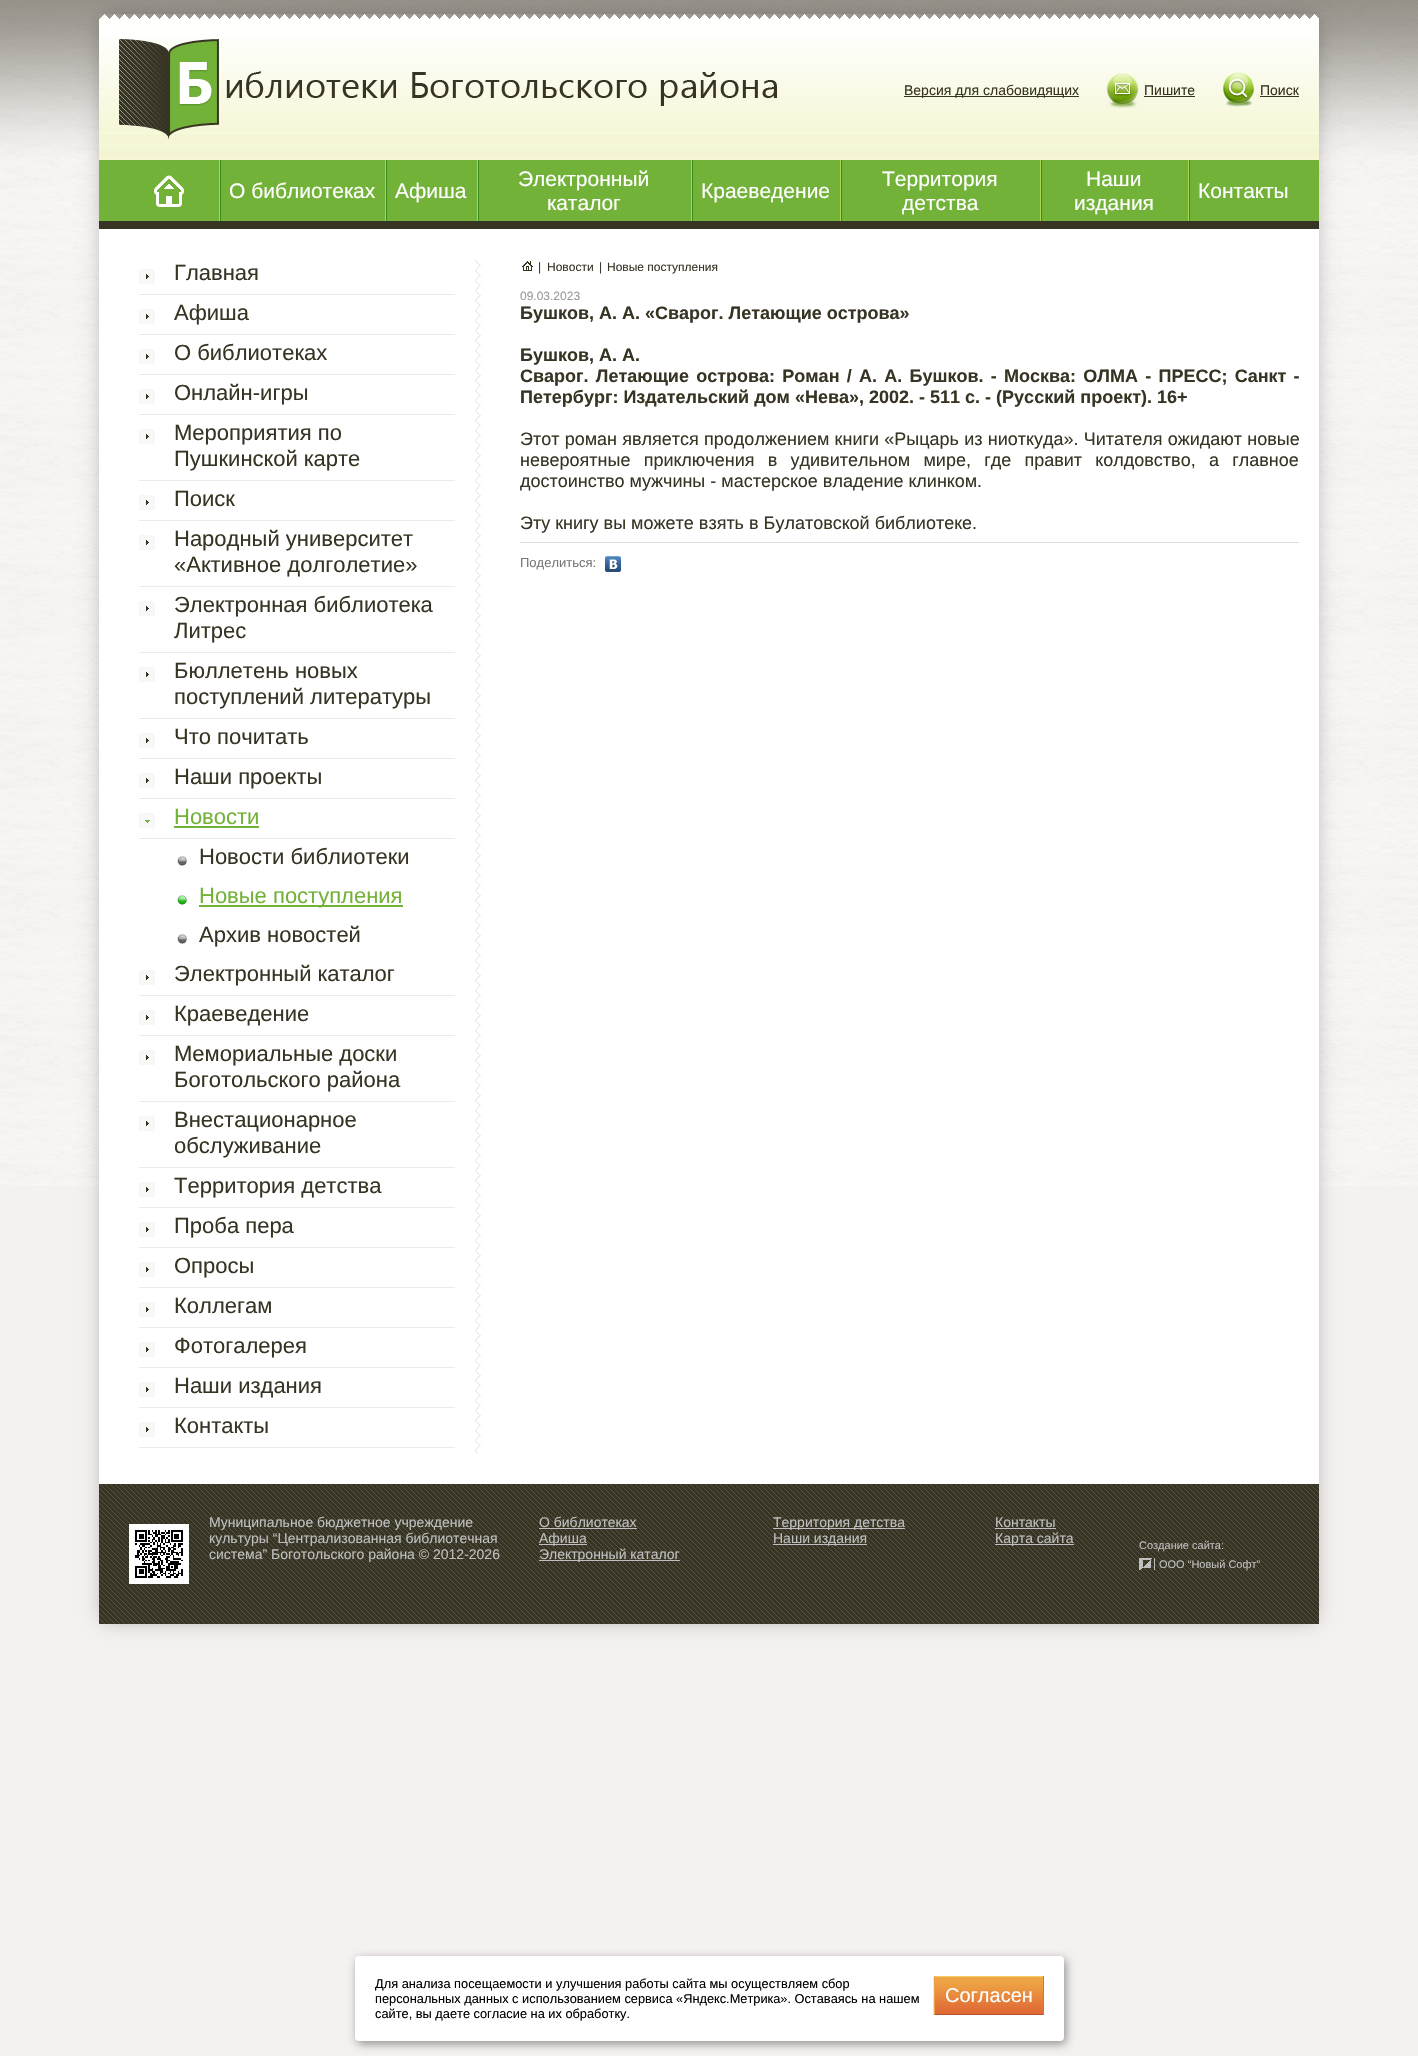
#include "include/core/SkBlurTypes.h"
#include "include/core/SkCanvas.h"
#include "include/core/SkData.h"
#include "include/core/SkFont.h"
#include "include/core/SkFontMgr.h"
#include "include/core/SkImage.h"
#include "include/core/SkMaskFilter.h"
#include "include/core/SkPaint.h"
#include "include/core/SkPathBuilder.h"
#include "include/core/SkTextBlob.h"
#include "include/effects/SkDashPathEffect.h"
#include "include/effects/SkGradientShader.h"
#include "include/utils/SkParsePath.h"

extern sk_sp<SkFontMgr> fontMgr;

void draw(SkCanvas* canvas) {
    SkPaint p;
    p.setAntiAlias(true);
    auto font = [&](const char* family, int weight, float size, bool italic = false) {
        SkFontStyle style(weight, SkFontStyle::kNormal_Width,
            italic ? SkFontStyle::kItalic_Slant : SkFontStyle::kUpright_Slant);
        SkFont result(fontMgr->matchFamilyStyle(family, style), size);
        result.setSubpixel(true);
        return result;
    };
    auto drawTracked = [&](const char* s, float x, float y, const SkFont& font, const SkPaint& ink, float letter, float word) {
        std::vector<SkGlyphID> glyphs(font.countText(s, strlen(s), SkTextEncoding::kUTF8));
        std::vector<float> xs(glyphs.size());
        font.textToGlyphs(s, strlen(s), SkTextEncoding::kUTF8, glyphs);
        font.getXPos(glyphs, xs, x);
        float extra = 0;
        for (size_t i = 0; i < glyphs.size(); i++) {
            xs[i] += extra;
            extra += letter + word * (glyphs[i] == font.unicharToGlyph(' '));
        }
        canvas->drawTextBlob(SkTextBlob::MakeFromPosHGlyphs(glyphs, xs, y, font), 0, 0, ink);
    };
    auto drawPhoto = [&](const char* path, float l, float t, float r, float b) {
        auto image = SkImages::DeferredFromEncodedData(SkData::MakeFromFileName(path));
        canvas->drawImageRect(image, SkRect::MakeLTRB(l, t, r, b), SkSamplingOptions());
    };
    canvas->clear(0xFFF4F1F0);
    drawPhoto("media/1.png", 0, 0, 1418, 1186);
    canvas->save();
    canvas->clipPath(SkPathBuilder(SkPathFillType::kEvenOdd).moveTo(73, 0).lineTo(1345, 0).lineTo(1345, 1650).lineTo(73, 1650).close().moveTo(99, 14).lineTo(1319, 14).lineTo(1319, 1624).lineTo(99, 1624).close().detach(), true);
    p.setColor(0x4D000000);
    p.setMaskFilter(SkMaskFilter::MakeBlur(kNormal_SkBlurStyle, 9.5f));
    canvas->drawRect(SkRect::MakeLTRB(103, 18, 1315, 1620), p);
    p.setMaskFilter(nullptr);
    canvas->restore();
    drawPhoto("media/2.png", 100, 14, 1319, 19);
    p.setColor(0xFFFFFFFE);
    canvas->drawRect(SkRect::MakeLTRB(99, 19, 1319, 38), p);
    drawPhoto("media/3.png", 99, 38, 1319, 160);
    drawPhoto("media/4.png", 119, 39, 777, 140);
    p.setColor(0xFF383424);
    canvas->drawRect(SkRect::MakeLTRB(904, 96, 1079, 97), p);
    auto font1 = font("Liberation Sans", 400, 14);
    canvas->drawString("Версия для слабовидящих", 904, 95, font1, p);
    drawPhoto("media/5.png", 1106, 73, 1145, 109);
    canvas->drawString("Пишите", 1144, 95, font1, p);
    canvas->drawRect(SkRect::MakeLTRB(1144, 96, 1195, 97), p);
    drawPhoto("media/6.png", 1222, 72, 1255, 107);
    canvas->drawString("Поиск", 1260, 95, font1, p);
    {
        const struct { float l, t, r, b; SkColor color; } items[] = {
            {1260, 96, 1299, 97, 0xFF383424},
            {99, 221, 1319, 229, 0xFF383424},
            {99, 160, 1319, 221, 0xFF72B238},
        };
        for (auto [l, t, r, b, color] : items) {
            p.setColor(color);
            canvas->drawRect(SkRect::MakeLTRB(l, t, r, b), p);
        }
    }
    drawPhoto("media/7.png", 154, 175, 184, 207);
    drawPhoto("media/8.png", 219, 160, 221, 221);
    auto font2 = font("Liberation Sans", 400, 21);
    p.setColor(0xFFFFFFFF);
    canvas->drawString("О библиотеках", 229, 198, font2, p);
    drawPhoto("media/8.png", 385, 160, 387, 221);
    canvas->drawString("Афиша", 395, 198, font2, p);
    drawPhoto("media/8.png", 477, 160, 479, 221);
    canvas->drawString("Электронный", 518, 186, font2, p);
    canvas->drawString("каталог", 547, 210, font2, p);
    drawPhoto("media/8.png", 691, 160, 693, 221);
    canvas->drawString("Краеведение", 701, 198, font2, p);
    drawPhoto("media/8.png", 840, 160, 842, 221);
    canvas->drawString("Территория", 882, 186, font2, p);
    canvas->drawString("детства", 902, 210, font2, p);
    drawPhoto("media/8.png", 1040, 160, 1042, 221);
    canvas->drawString("Наши", 1086, 186, font2, p);
    canvas->drawString("издания", 1074, 210, font2, p);
    drawPhoto("media/8.png", 1188, 160, 1190, 221);
    canvas->drawString("Контакты", 1198, 198, font2, p);
    canvas->drawRect(SkRect::MakeLTRB(99, 229, 1319, 1484), p);
    drawPhoto("media/9.png", 139, 269, 155, 284);
    p.setColor(0xFFEBEBE9);
    canvas->drawRect(SkRect::MakeLTRB(139, 294, 455, 295), p);
    auto font3 = font("Liberation Sans", 400, 22);
    p.setColor(0xFF383424);
    canvas->drawString("Главная", 174, 280, font3, p);
    drawPhoto("media/9.png", 139, 309, 155, 324);
    p.setColor(0xFFEBEBE9);
    canvas->drawRect(SkRect::MakeLTRB(139, 334, 455, 335), p);
    p.setColor(0xFF383424);
    canvas->drawString("Афиша", 174, 320, font3, p);
    drawPhoto("media/9.png", 139, 349, 155, 364);
    p.setColor(0xFFEBEBE9);
    canvas->drawRect(SkRect::MakeLTRB(139, 374, 455, 375), p);
    p.setColor(0xFF383424);
    canvas->drawString("О библиотеках", 174, 360, font3, p);
    drawPhoto("media/9.png", 139, 389, 155, 404);
    p.setColor(0xFFEBEBE9);
    canvas->drawRect(SkRect::MakeLTRB(139, 414, 455, 415), p);
    p.setColor(0xFF383424);
    canvas->drawString("Онлайн-игры", 174, 400, font3, p);
    drawPhoto("media/9.png", 139, 429, 155, 444);
    p.setColor(0xFFEBEBE9);
    canvas->drawRect(SkRect::MakeLTRB(139, 480, 455, 481), p);
    p.setColor(0xFF383424);
    canvas->drawString("Мероприятия по", 174, 440, font3, p);
    canvas->drawString("Пушкинской карте", 174, 466, font3, p);
    drawPhoto("media/9.png", 139, 495, 155, 510);
    p.setColor(0xFFEBEBE9);
    canvas->drawRect(SkRect::MakeLTRB(139, 520, 455, 521), p);
    p.setColor(0xFF383424);
    canvas->drawString("Поиск", 174, 506, font3, p);
    drawPhoto("media/9.png", 139, 535, 155, 550);
    p.setColor(0xFFEBEBE9);
    canvas->drawRect(SkRect::MakeLTRB(139, 586, 455, 587), p);
    p.setColor(0xFF383424);
    canvas->drawString("Народный университет", 174, 546, font3, p);
    canvas->drawString("«Активное долголетие»", 174, 572, font3, p);
    drawPhoto("media/9.png", 139, 601, 155, 616);
    p.setColor(0xFFEBEBE9);
    canvas->drawRect(SkRect::MakeLTRB(139, 652, 455, 653), p);
    p.setColor(0xFF383424);
    canvas->drawString("Электронная библиотека", 174, 612, font3, p);
    canvas->drawString("Литрес", 174, 638, font3, p);
    drawPhoto("media/9.png", 139, 667, 155, 682);
    p.setColor(0xFFEBEBE9);
    canvas->drawRect(SkRect::MakeLTRB(139, 718, 455, 719), p);
    p.setColor(0xFF383424);
    canvas->drawString("Бюллетень новых", 174, 678, font3, p);
    canvas->drawString("поступлений литературы", 174, 704, font3, p);
    drawPhoto("media/9.png", 139, 733, 155, 748);
    p.setColor(0xFFEBEBE9);
    canvas->drawRect(SkRect::MakeLTRB(139, 758, 455, 759), p);
    p.setColor(0xFF383424);
    canvas->drawString("Что почитать", 174, 744, font3, p);
    drawPhoto("media/9.png", 139, 773, 155, 788);
    p.setColor(0xFFEBEBE9);
    canvas->drawRect(SkRect::MakeLTRB(139, 798, 455, 799), p);
    p.setColor(0xFF383424);
    canvas->drawString("Наши проекты", 174, 784, font3, p);
    drawPhoto("media/10.png", 139, 813, 155, 828);
    p.setColor(0xFFEBEBE9);
    canvas->drawRect(SkRect::MakeLTRB(139, 838, 455, 839), p);
    p.setColor(0xFF72B238);
    canvas->drawString("Новости", 174, 824, font3, p);
    canvas->drawRect(SkRect::MakeLTRB(174, 826, 259, 828), p);
    drawPhoto("media/11.png", 177, 856, 188, 866);
    p.setColor(0xFF383424);
    canvas->drawString("Новости библиотеки", 199, 864, font3, p);
    drawPhoto("media/12.png", 177, 895, 188, 905);
    p.setColor(0xFF72B238);
    canvas->drawRect(SkRect::MakeLTRB(199, 905, 403, 907), p);
    canvas->drawString("Новые поступления", 199, 903, font3, p);
    drawPhoto("media/11.png", 177, 934, 188, 944);
    p.setColor(0xFF383424);
    canvas->drawString("Архив новостей", 199, 942, font3, p);
    drawPhoto("media/9.png", 139, 970, 155, 985);
    p.setColor(0xFFEBEBE9);
    canvas->drawRect(SkRect::MakeLTRB(139, 995, 455, 996), p);
    p.setColor(0xFF383424);
    canvas->drawString("Электронный каталог", 174, 981, font3, p);
    drawPhoto("media/9.png", 139, 1010, 155, 1025);
    p.setColor(0xFFEBEBE9);
    canvas->drawRect(SkRect::MakeLTRB(139, 1035, 455, 1036), p);
    p.setColor(0xFF383424);
    canvas->drawString("Краеведение", 174, 1021, font3, p);
    drawPhoto("media/9.png", 139, 1050, 155, 1065);
    p.setColor(0xFFEBEBE9);
    canvas->drawRect(SkRect::MakeLTRB(139, 1101, 455, 1102), p);
    p.setColor(0xFF383424);
    canvas->drawString("Мемориальные доски", 174, 1061, font3, p);
    canvas->drawString("Боготольского района", 174, 1087, font3, p);
    drawPhoto("media/9.png", 139, 1116, 155, 1131);
    p.setColor(0xFFEBEBE9);
    canvas->drawRect(SkRect::MakeLTRB(139, 1167, 455, 1168), p);
    p.setColor(0xFF383424);
    canvas->drawString("Внестационарное", 174, 1127, font3, p);
    canvas->drawString("обслуживание", 174, 1153, font3, p);
    drawPhoto("media/9.png", 139, 1182, 155, 1197);
    p.setColor(0xFFEBEBE9);
    canvas->drawRect(SkRect::MakeLTRB(139, 1207, 455, 1208), p);
    p.setColor(0xFF383424);
    canvas->drawString("Территория детства", 174, 1193, font3, p);
    drawPhoto("media/9.png", 139, 1222, 155, 1237);
    p.setColor(0xFFEBEBE9);
    canvas->drawRect(SkRect::MakeLTRB(139, 1247, 455, 1248), p);
    p.setColor(0xFF383424);
    canvas->drawString("Проба пера", 174, 1233, font3, p);
    drawPhoto("media/9.png", 139, 1262, 155, 1277);
    p.setColor(0xFFEBEBE9);
    canvas->drawRect(SkRect::MakeLTRB(139, 1287, 455, 1288), p);
    p.setColor(0xFF383424);
    canvas->drawString("Опросы", 174, 1273, font3, p);
    drawPhoto("media/9.png", 139, 1302, 155, 1317);
    p.setColor(0xFFEBEBE9);
    canvas->drawRect(SkRect::MakeLTRB(139, 1327, 455, 1328), p);
    p.setColor(0xFF383424);
    canvas->drawString("Коллегам", 174, 1313, font3, p);
    drawPhoto("media/9.png", 139, 1342, 155, 1357);
    p.setColor(0xFFEBEBE9);
    canvas->drawRect(SkRect::MakeLTRB(139, 1367, 455, 1368), p);
    p.setColor(0xFF383424);
    canvas->drawString("Фотогалерея", 174, 1353, font3, p);
    drawPhoto("media/9.png", 139, 1382, 155, 1397);
    p.setColor(0xFFEBEBE9);
    canvas->drawRect(SkRect::MakeLTRB(139, 1407, 455, 1408), p);
    p.setColor(0xFF383424);
    canvas->drawString("Наши издания", 174, 1393, font3, p);
    drawPhoto("media/9.png", 139, 1422, 155, 1437);
    p.setColor(0xFFEBEBE9);
    canvas->drawRect(SkRect::MakeLTRB(139, 1447, 455, 1448), p);
    p.setColor(0xFF383424);
    canvas->drawString("Контакты", 174, 1433, font3, p);
    drawPhoto("media/13.png", 475, 260, 481, 1453);
    drawPhoto("media/14.png", 522, 261, 533, 271);
    auto font4 = font("Liberation Sans", 400, 12);
    {
        const struct { const char* s; float x, y; } items[] = {
            {"|", 538, 271},
            {"Новости", 547, 271},
            {"|", 599, 271},
            {"Новые поступления", 607, 271},
        };
        for (auto [s, x, y] : items) {
            canvas->drawString(s, x, y, font4, p);
        }
    }
    p.setColor(0xFF999999);
    canvas->drawString("09.03.2023", 520, 300, font4, p);
    auto font5 = font("Liberation Sans", 700, 18);
    p.setColor(0xFF383424);
    canvas->drawString("Бушков, А. А. «Сварог. Летающие острова»", 520, 319, font5, p);
    canvas->drawString("Бушков, А. А.", 520, 361, font5, p);
    drawTracked("Сварог. Летающие острова: Роман / А. А. Бушков. - Москва: ОЛМА - ПРЕСС; Санкт -", 520, 382, font5, p, 0, 2.25f);
    canvas->drawString("Петербург: Издательский дом «Нева», 2002. - 511 с. - (Русский проект). 16+", 520, 403, font5, p);
    auto font6 = font("Liberation Sans", 400, 18);
    drawTracked("Этот роман является продолжением книги «Рыцарь из ниоткуда». Читателя ожидают новые", 520, 445, font6, p, 0, 0.25f);
    drawTracked("невероятные приключения в удивительном мире, где правит колдовство, а главное", 520, 466, font6, p, 0, 8.25f);
    canvas->drawString("достоинство мужчины - мастерское владение клинком.", 520, 487, font6, p);
    canvas->drawString("Эту книгу вы можете взять в Булатовской библиотеке.", 520, 529, font6, p);
    p.setColor(0xFFDDDDDD);
    canvas->drawRect(SkRect::MakeLTRB(520, 542, 1299, 543), p);
    auto font7 = font("Liberation Sans", 400, 13);
    p.setColor(0xFF777777);
    canvas->drawString("Поделиться:", 520, 567, font7, p);
    drawPhoto("media/15.png", 605, 556, 621, 572);
    drawPhoto("media/16.png", 99, 1484, 1319, 1624);
    drawPhoto("media/17.png", 129, 1524, 189, 1584);
    p.setColor(0xFFBFBFBF);
    {
        const struct { const char* s; float x, y; } items[] = {
            {"Муниципальное бюджетное учреждение", 209, 1527},
            {"культуры “Централизованная библиотечная", 209, 1543},
            {"система” Боготольского района © 2012-2026", 209, 1559},
            {"О библиотеках", 539, 1527},
        };
        for (auto [s, x, y] : items) {
            canvas->drawString(s, x, y, font1, p);
        }
    }
    canvas->drawRect(SkRect::MakeLTRB(539, 1528, 637, 1529), p);
    canvas->drawRect(SkRect::MakeLTRB(539, 1544, 587, 1545), p);
    canvas->drawString("Афиша", 539, 1543, font1, p);
    canvas->drawRect(SkRect::MakeLTRB(539, 1560, 680, 1561), p);
    canvas->drawString("Электронный каталог", 539, 1559, font1, p);
    canvas->drawRect(SkRect::MakeLTRB(773, 1528, 905, 1529), p);
    canvas->drawString("Территория детства", 773, 1527, font1, p);
    canvas->drawRect(SkRect::MakeLTRB(773, 1544, 867, 1545), p);
    canvas->drawString("Наши издания", 773, 1543, font1, p);
    canvas->drawString("Контакты", 995, 1527, font1, p);
    canvas->drawRect(SkRect::MakeLTRB(995, 1528, 1056, 1529), p);
    canvas->drawRect(SkRect::MakeLTRB(995, 1544, 1074, 1545), p);
    canvas->drawString("Карта сайта", 995, 1543, font1, p);
    auto font8 = font("Liberation Sans", 400, 11);
    canvas->drawString("Создание сайта:", 1139, 1549, font8, p);
    drawPhoto("media/18.png", 1139, 1558, 1155, 1570);
    canvas->drawString("ООО “Новый Софт”", 1159, 1568, font8, p);
    p.setColor(0x66000000);
    p.setMaskFilter(SkMaskFilter::MakeBlur(kNormal_SkBlurStyle, 5));
    canvas->drawRoundRect(SkRect::MakeLTRB(357, 1959, 1066, 2044), 4, 4, p);
    p.setMaskFilter(nullptr);
    p.setColor(0xFFFFFFFF);
    canvas->drawRoundRect(SkRect::MakeLTRB(355, 1956, 1064, 2041), 4, 4, p);
    auto font9 = font("Liberation Sans", 400, 12.8f);
    p.setColor(0xFF000000);
    {
        const struct { const char* s; float x, y; } items[] = {
            {"Для анализа посещаемости и улучшения работы сайта мы осуществляем сбор", 375, 1988},
            {"персональных данных с использованием сервиса «Яндекс.Метрика». Оставаясь на нашем", 375, 2003},
            {"сайте, вы даете согласие на их обработку.", 375, 2018},
        };
        for (auto [s, x, y] : items) {
            canvas->drawString(s, x, y, font9, p);
        }
    }
    drawPhoto("media/19.png", 933, 1976, 1043, 2015);
    p.setColor(0xFFCC7635);
    canvas->drawRect(SkRect::MakeLTRB(1043, 1976, 1044, 2015), p);
    p.setColor(0xFFECA14A);
    canvas->drawRect(SkRect::MakeLTRB(934, 1976, 935, 2015), p);
    auto font10 = font("Liberation Sans", 400, 20);
    p.setColor(0xFFFFFFFF);
    canvas->drawString("Cогласен", 945, 2002, font10, p);
}
